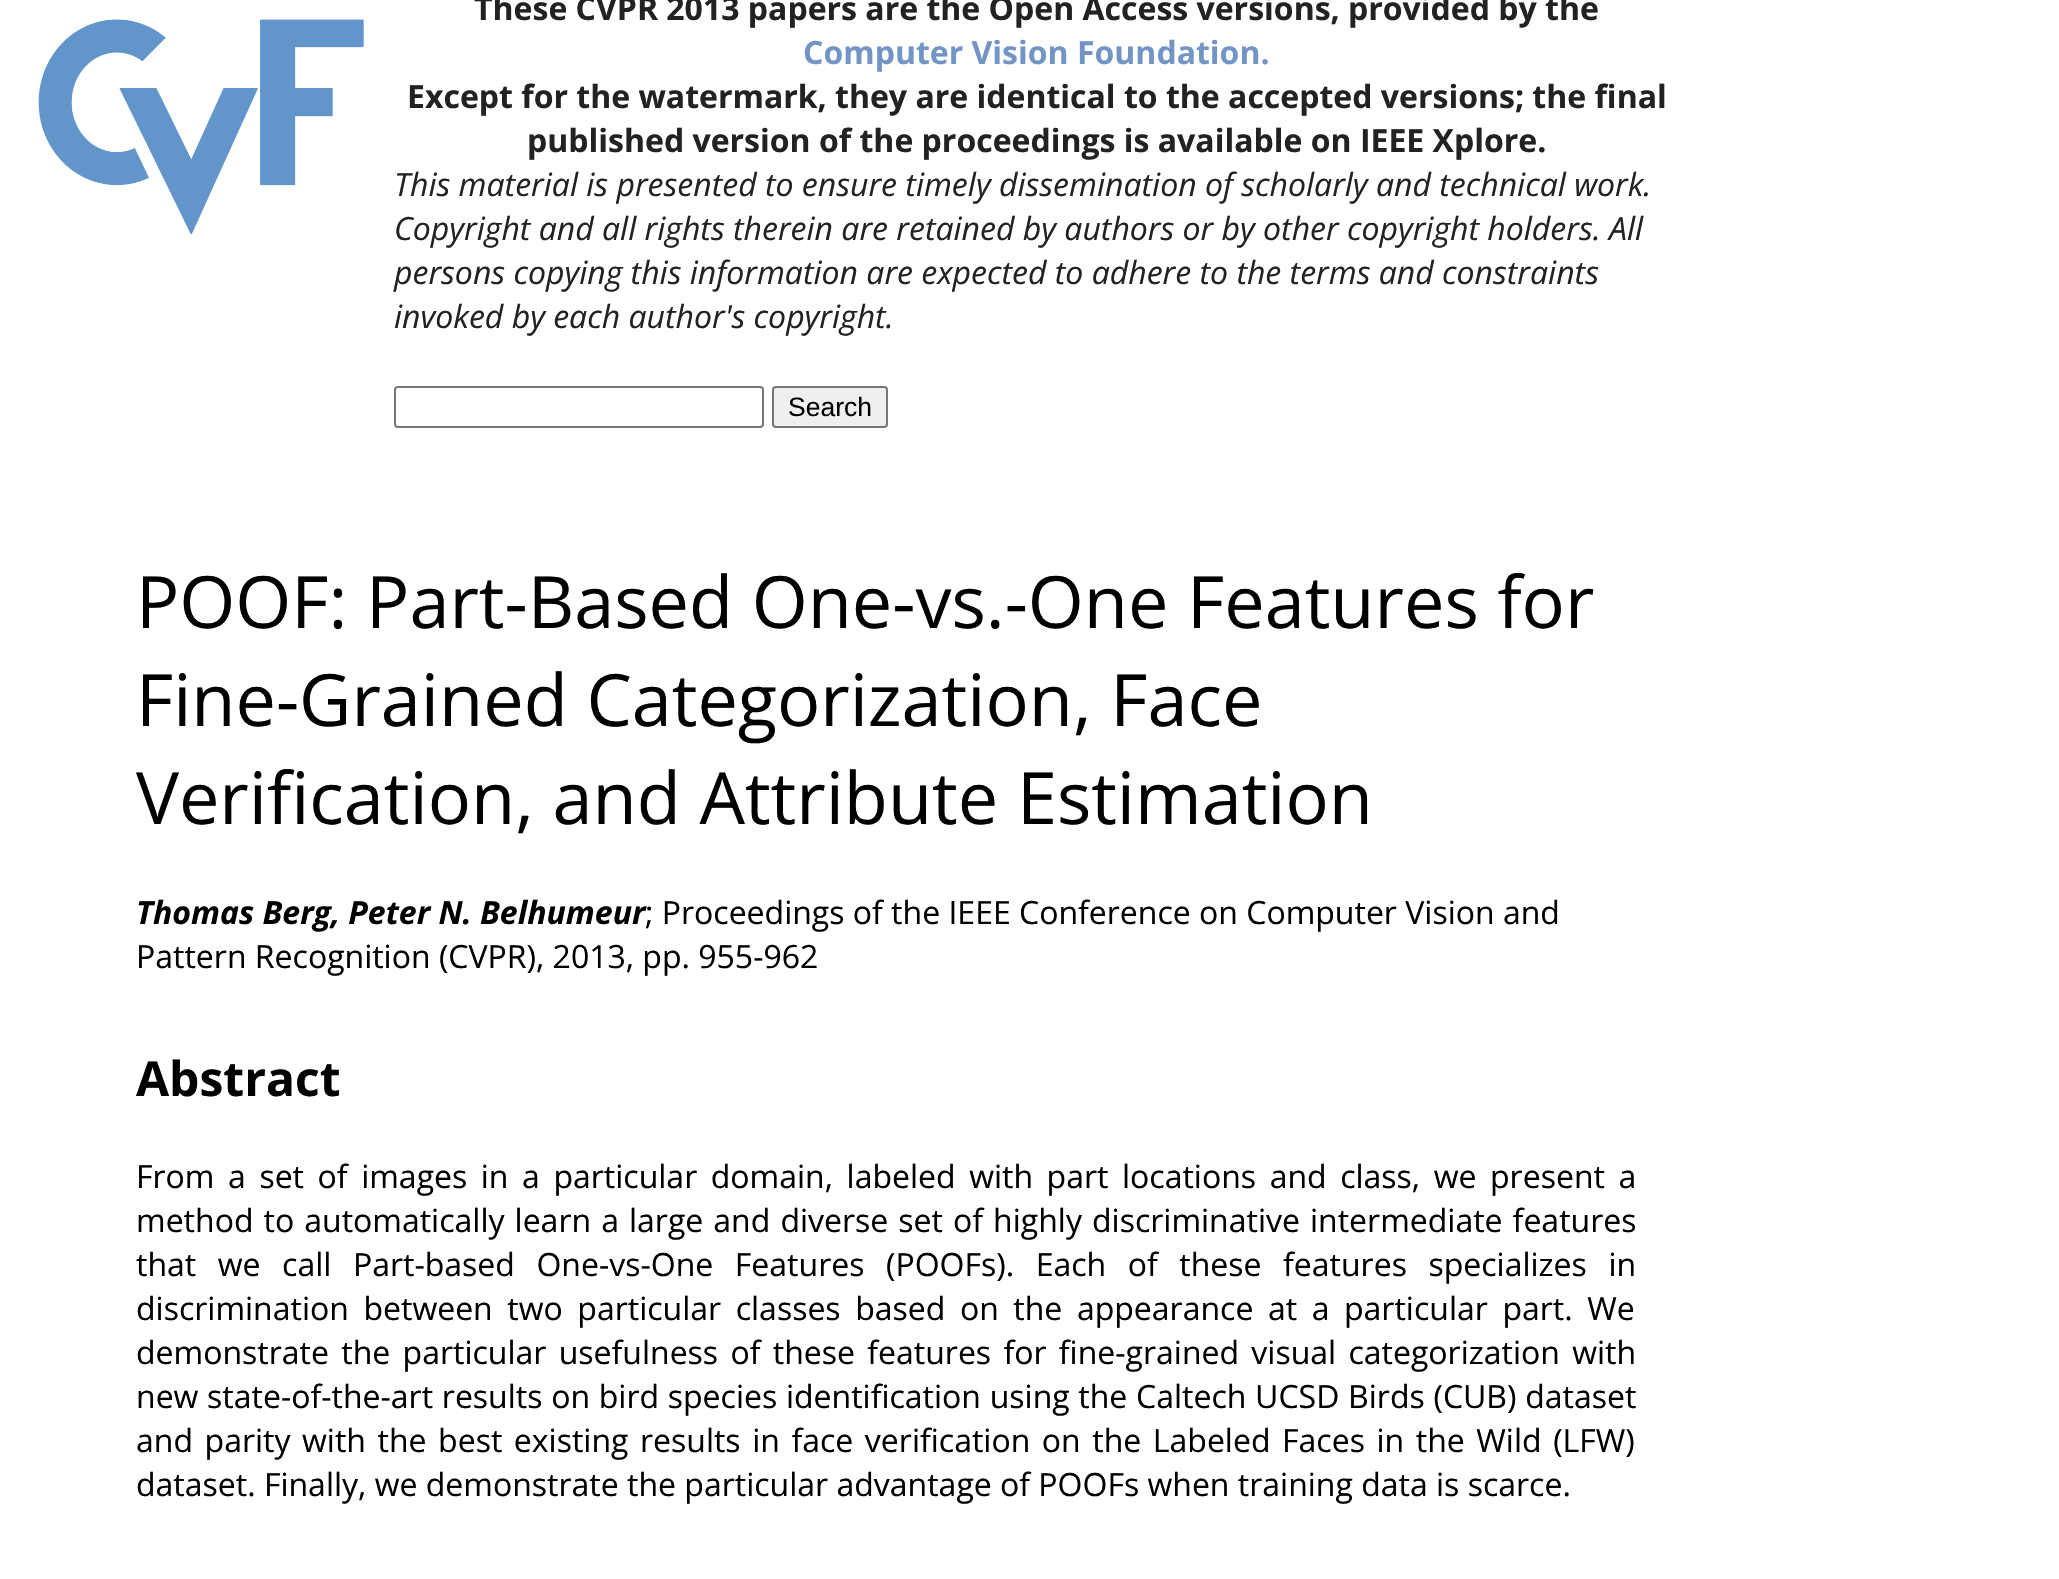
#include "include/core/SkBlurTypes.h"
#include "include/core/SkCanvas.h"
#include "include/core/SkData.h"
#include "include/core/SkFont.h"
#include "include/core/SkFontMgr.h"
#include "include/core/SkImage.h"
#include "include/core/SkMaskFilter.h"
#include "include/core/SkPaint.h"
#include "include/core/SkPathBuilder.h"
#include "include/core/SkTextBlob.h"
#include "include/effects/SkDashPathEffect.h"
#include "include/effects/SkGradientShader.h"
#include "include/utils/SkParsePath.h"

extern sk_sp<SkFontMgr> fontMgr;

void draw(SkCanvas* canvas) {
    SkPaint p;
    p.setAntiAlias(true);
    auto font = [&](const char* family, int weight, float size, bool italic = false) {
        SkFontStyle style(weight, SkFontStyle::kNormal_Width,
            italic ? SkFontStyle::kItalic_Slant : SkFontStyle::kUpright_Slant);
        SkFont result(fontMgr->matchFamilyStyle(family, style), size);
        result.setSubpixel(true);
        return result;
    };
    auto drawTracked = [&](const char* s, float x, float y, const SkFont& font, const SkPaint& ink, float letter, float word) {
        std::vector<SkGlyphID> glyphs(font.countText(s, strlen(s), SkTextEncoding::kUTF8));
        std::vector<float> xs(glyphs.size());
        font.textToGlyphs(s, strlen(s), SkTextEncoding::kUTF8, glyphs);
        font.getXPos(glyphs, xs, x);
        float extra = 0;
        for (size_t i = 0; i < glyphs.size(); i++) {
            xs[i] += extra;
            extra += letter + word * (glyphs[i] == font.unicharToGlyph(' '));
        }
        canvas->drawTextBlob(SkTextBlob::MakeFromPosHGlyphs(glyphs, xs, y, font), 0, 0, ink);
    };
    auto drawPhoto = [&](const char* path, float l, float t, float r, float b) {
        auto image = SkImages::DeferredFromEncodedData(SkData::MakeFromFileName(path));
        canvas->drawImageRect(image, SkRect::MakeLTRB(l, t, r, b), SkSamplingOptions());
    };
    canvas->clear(0xFFFFFFFF);
    drawPhoto("media/1.png", 38, 19, 364, 235);
    auto font1 = font("Open Sans", 700, 32);
    p.setColor(0xFF222222);
    canvas->drawString("These CVPR 2013 papers are the Open Access versions, provided by the", 474, 20, font1, p);
    p.setColor(0xFF7395C5);
    canvas->drawString("Computer Vision Foundation.", 803, 64, font1, p);
    p.setColor(0xFF222222);
    canvas->drawString("Except for the watermark, they are identical to the accepted versions; the final", 407, 108, font1, p);
    canvas->drawString("published version of the proceedings is available on IEEE Xplore.", 527, 152, font1, p);
    auto font2 = font("Open Sans", 400, 32, true);
    {
        const struct { const char* s; float x, y; } items[] = {
            {"This material is presented to ensure timely dissemination of scholarly and technical work.", 394, 196},
            {"Copyright and all rights therein are retained by authors or by other copyright holders. All", 394, 240},
            {"persons copying this information are expected to adhere to the terms and constraints", 394, 284},
            {"invoked by each author's copyright.", 394, 328},
        };
        for (auto [s, x, y] : items) {
            canvas->drawString(s, x, y, font2, p);
        }
    }
    p.setStyle(SkPaint::kStroke_Style);
    p.setStrokeWidth(2);
    p.setColor(0xFF767676);
    canvas->drawRoundRect(SkRect::MakeLTRB(395, 387, 763, 427), 3, 3, p);
    p.setStyle(SkPaint::kFill_Style);
    p.setColor(0xFFEFEFEF);
    canvas->drawRoundRect(SkRect::MakeLTRB(773, 387, 887, 427), 3, 3, p);
    p.setStyle(SkPaint::kStroke_Style);
    p.setColor(0xFF767676);
    canvas->drawRoundRect(SkRect::MakeLTRB(773, 387, 887, 427), 3, 3, p);
    auto font3 = font("Liberation Sans", 400, 26.5f);
    p.setStyle(SkPaint::kFill_Style);
    p.setColor(0xFF000000);
    canvas->drawString("Search", 788, 416, font3, p);
    auto font4 = font("Open Sans", 400, 72);
    {
        const struct { const char* s; float x, y; } items[] = {
            {"POOF: Part-Based One-vs.-One Features for", 136, 628},
            {"Fine-Grained Categorization, Face", 136, 726},
            {"Verification, and Attribute Estimation", 136, 824},
        };
        for (auto [s, x, y] : items) {
            canvas->drawString(s, x, y, font4, p);
        }
    }
    auto font5 = font("Open Sans", 700, 32, true);
    canvas->drawString("Thomas Berg, Peter N. Belhumeur", 136, 924, font5, p);
    auto font6 = font("Open Sans", 400, 32);
    canvas->drawString("; Proceedings of the IEEE Conference on Computer Vision and", 645, 924, font6, p);
    canvas->drawString("Pattern Recognition (CVPR), 2013, pp. 955-962", 136, 968, font6, p);
    auto font7 = font("Open Sans", 700, 48);
    canvas->drawString("Abstract", 136, 1096, font7, p);
    drawTracked("From a set of images in a particular domain, labeled with part locations and class, we present a", 136, 1188, font6, p, 0, 5.25f);
    drawTracked("method to automatically learn a large and diverse set of highly discriminative intermediate features", 136, 1232, font6, p, 0, 1.75f);
    drawTracked("that we call Part-based One-vs-One Features (POOFs). Each of these features specializes in", 136, 1276, font6, p, 0, 13.25f);
    drawTracked("discrimination between two particular classes based on the appearance at a particular part. We", 136, 1320, font6, p, 0, 6.25f);
    drawTracked("demonstrate the particular usefulness of these features for fine-grained visual categorization with", 136, 1364, font6, p, 0, 4);
    drawTracked("new state-of-the-art results on bird species identification using the Caltech UCSD Birds (CUB) dataset", 136, 1408, font6, p, 0, 0.4f);
    drawTracked("and parity with the best existing results in face verification on the Labeled Faces in the Wild (LFW)", 136, 1452, font6, p, 0, 3.25f);
    canvas->drawString("dataset. Finally, we demonstrate the particular advantage of POOFs when training data is scarce.", 136, 1496, font6, p);
}
